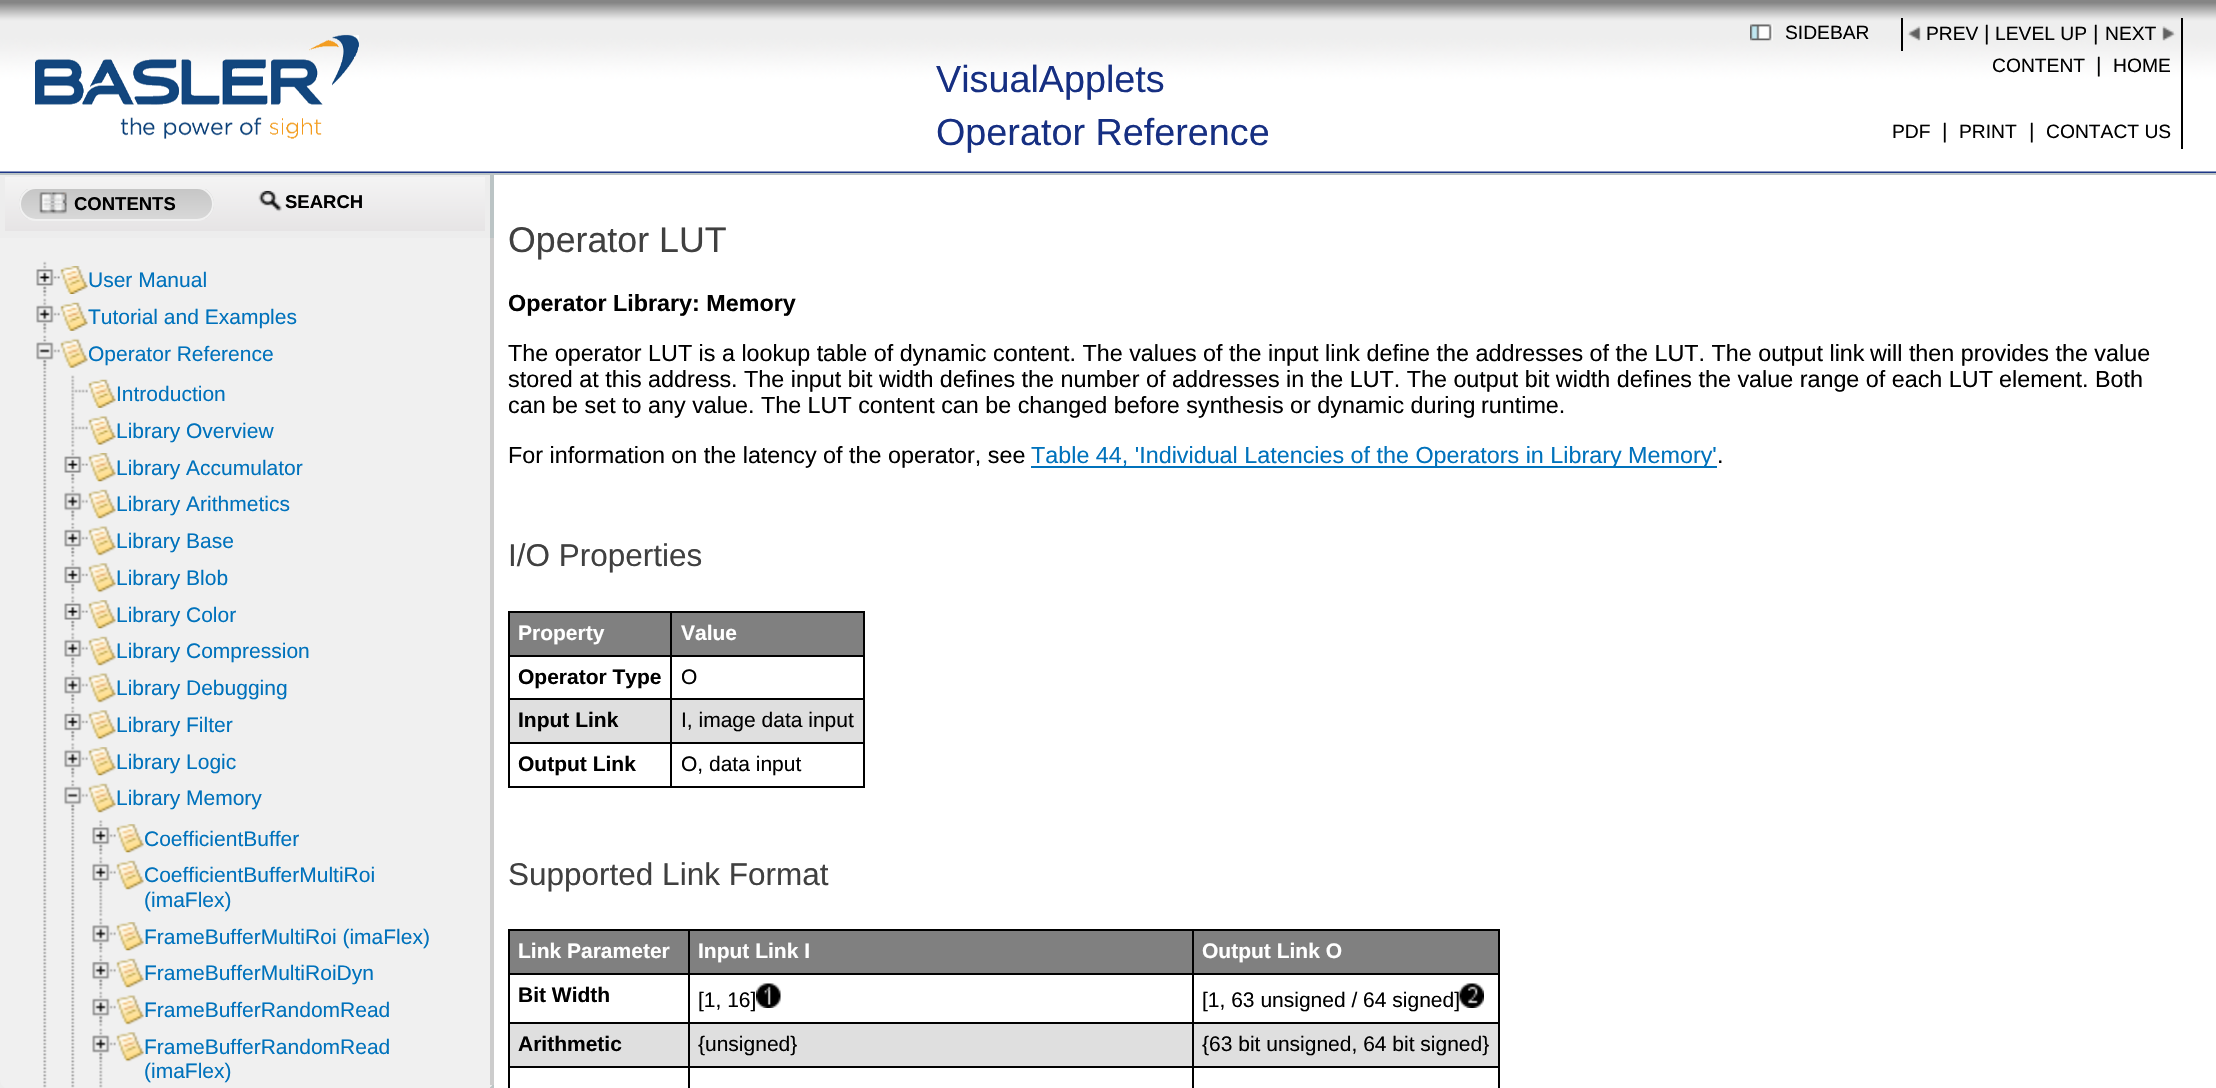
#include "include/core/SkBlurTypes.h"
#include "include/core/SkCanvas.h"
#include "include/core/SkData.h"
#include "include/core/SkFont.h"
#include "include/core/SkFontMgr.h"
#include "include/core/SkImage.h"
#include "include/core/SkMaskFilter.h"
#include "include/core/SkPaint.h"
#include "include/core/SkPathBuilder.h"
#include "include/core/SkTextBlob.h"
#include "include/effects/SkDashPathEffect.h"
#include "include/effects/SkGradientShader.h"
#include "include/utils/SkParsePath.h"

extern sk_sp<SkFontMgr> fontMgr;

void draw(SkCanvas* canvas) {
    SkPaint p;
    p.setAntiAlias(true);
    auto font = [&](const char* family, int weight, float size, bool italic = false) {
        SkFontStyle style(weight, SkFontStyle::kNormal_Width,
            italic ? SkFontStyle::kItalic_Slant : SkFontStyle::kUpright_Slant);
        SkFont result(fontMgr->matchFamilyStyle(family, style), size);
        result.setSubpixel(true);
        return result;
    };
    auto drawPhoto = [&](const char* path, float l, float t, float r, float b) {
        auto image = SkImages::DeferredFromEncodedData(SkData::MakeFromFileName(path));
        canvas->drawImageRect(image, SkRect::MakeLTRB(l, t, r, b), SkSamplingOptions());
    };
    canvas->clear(0xFFFFFFFF);
    drawPhoto("media/1.png", 0, 0, 2216, 173);
    p.setColor(0xFFBBC4C5);
    canvas->drawRect(SkRect::MakeLTRB(0, 173, 2216, 175), p);
    drawPhoto("media/2.png", 35, 34, 359, 139);
    auto font1 = font("Liberation Sans", 400, 37.75f);
    p.setColor(0xFF162F82);
    canvas->drawString("VisualApplets", 936, 92, font1, p);
    canvas->drawString("Operator Reference", 936, 145, font1, p);
    p.setColor(0xFF000000);
    canvas->drawRect(SkRect::MakeLTRB(1901, 18, 1903, 51), p);
    drawPhoto("media/3.png", 1750, 24, 1773, 41);
    auto font2 = font("Liberation Sans", 400, 19.25f);
    canvas->drawString("SIDEBAR", 1785, 39, font2, p);
    drawPhoto("media/4.png", 1907, 26, 1921, 41);
    canvas->drawString("PREV", 1926, 40, font2, p);
    auto font3 = font("Liberation Sans", 400, 21);
    canvas->drawString("|", 1984, 40, font3, p);
    canvas->drawString("LEVEL UP", 1995, 40, font2, p);
    canvas->drawString("|", 2093, 40, font3, p);
    canvas->drawString("NEXT", 2105, 40, font2, p);
    drawPhoto("media/5.png", 2162, 26, 2176, 41);
    canvas->drawString("CONTENT", 1992, 72, font2, p);
    canvas->drawString("|", 2096, 72, font3, p);
    canvas->drawString("HOME", 2113, 72, font2, p);
    canvas->drawRect(SkRect::MakeLTRB(2181, 18, 2183, 149), p);
    canvas->drawString("PDF", 1892, 138, font2, p);
    canvas->drawString("|", 1942, 138, font3, p);
    canvas->drawString("PRINT", 1959, 138, font2, p);
    canvas->drawString("|", 2029, 138, font3, p);
    canvas->drawString("CONTACT US", 2046, 138, font2, p);
    p.setColor(0xFFEDEDED);
    canvas->drawRect(SkRect::MakeLTRB(0, 175, 490, 1088), p);
    p.setColor(0xFFBBC4C5);
    canvas->drawRect(SkRect::MakeLTRB(490, 175, 494, 1088), p);
    {
        const SkColor colors[] = {0xFFF4F4F4, 0xFFE6E4E5};
        const float stops[] = {0, 1};
        const SkPoint ends[] = {{5.2f, 177}, {5.2f, 231}};
        p.setShader(SkGradientShader::MakeLinear(ends, colors, stops, 2, SkTileMode::kClamp));
        p.setAlpha(255);
    }
    canvas->drawRect(SkRect::MakeLTRB(5, 177, 485, 231), p);
    canvas->save();
    canvas->clipPath(SkPathBuilder().moveTo(36, 187).lineTo(197, 187).cubicTo(206.5f, 187, 214, 194.5f, 214, 204).cubicTo(214, 213.5f, 206.5f, 221, 197, 221).lineTo(36, 221).cubicTo(26.5f, 221, 19, 213.5f, 19, 204).cubicTo(19, 194.5f, 26.5f, 187, 36, 187).close().detach(), true);
    {
        const SkColor colors[] = {0xFFC6C6C6, 0xFFD8D8D8};
        const float stops[] = {0, 1};
        const SkPoint ends[] = {{21, 189}, {21, 219}};
        p.setShader(SkGradientShader::MakeLinear(ends, colors, stops, 2, SkTileMode::kClamp));
        p.setAlpha(255);
    }
    canvas->drawRect(SkRect::MakeLTRB(19, 189, 214, 219), p);
    canvas->restore();
    p.setStyle(SkPaint::kStroke_Style);
    p.setStrokeWidth(2);
    p.setShader(nullptr);
    p.setColor(0xFFF1F1F1);
    canvas->drawRoundRect(SkRect::MakeLTRB(20, 188, 213, 220), 16, 16, p);
    drawPhoto("media/6.png", 39, 192, 67, 214);
    auto font4 = font("Liberation Sans", 700, 18.5f);
    p.setStyle(SkPaint::kFill_Style);
    p.setColor(0xFF000000);
    canvas->drawString("CONTENTS", 74, 210, font4, p);
    drawPhoto("media/7.png", 258, 190, 282, 212);
    canvas->drawString("SEARCH", 285, 208, font4, p);
    p.setColor(0xFFF0F0F0);
    canvas->drawPath(SkPathBuilder().moveTo(0, 238).lineTo(494, 238).lineTo(494, 1080).cubicTo(494, 1085, 490, 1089, 485, 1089).lineTo(9, 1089).cubicTo(4, 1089, 0, 1085, 0, 1080).close().detach(), p);
    p.setColor(0xFFCCCCCC);
    canvas->drawRect(SkRect::MakeLTRB(490, 238, 494, 1085), p);
    drawPhoto("media/8.png", 43, 261, 47, 297);
    drawPhoto("media/9.png", 36, 269, 60, 293);
    drawPhoto("media/10.png", 60, 266, 88, 294);
    p.setColor(0xFF0072BC);
    canvas->drawString("User Manual", 88, 287, font3, p);
    drawPhoto("media/11.png", 43, 298, 47, 334);
    drawPhoto("media/12.png", 36, 305, 60, 330);
    drawPhoto("media/13.png", 60, 302, 88, 331);
    canvas->drawString("Tutorial and Examples", 88, 324, font3, p);
    drawPhoto("media/14.png", 43, 335, 47, 1088);
    drawPhoto("media/15.png", 36, 342, 60, 367);
    drawPhoto("media/16.png", 60, 338, 88, 368);
    canvas->drawString("Operator Reference", 88, 361, font3, p);
    drawPhoto("media/17.png", 71, 375, 88, 411);
    drawPhoto("media/13.png", 88, 379, 116, 408);
    canvas->drawString("Introduction", 116, 401, font3, p);
    drawPhoto("media/18.png", 71, 412, 88, 447);
    drawPhoto("media/19.png", 88, 416, 116, 445);
    canvas->drawString("Library Overview", 116, 438, font3, p);
    drawPhoto("media/20.png", 71, 449, 75, 484);
    drawPhoto("media/21.png", 64, 456, 88, 480);
    drawPhoto("media/22.png", 88, 453, 116, 482);
    canvas->drawString("Library Accumulator", 116, 475, font3, p);
    drawPhoto("media/23.png", 71, 485, 75, 521);
    drawPhoto("media/24.png", 64, 492, 88, 518);
    drawPhoto("media/25.png", 88, 489, 116, 519);
    canvas->drawString("Library Arithmetics", 116, 511, font3, p);
    drawPhoto("media/26.png", 71, 522, 75, 557);
    drawPhoto("media/27.png", 64, 529, 88, 554);
    drawPhoto("media/28.png", 88, 526, 116, 556);
    canvas->drawString("Library Base", 116, 548, font3, p);
    drawPhoto("media/29.png", 71, 559, 75, 595);
    drawPhoto("media/30.png", 64, 566, 88, 591);
    drawPhoto("media/31.png", 88, 563, 116, 593);
    canvas->drawString("Library Blob", 116, 585, font3, p);
    drawPhoto("media/32.png", 71, 596, 75, 631);
    drawPhoto("media/33.png", 64, 603, 88, 627);
    drawPhoto("media/34.png", 88, 600, 116, 629);
    canvas->drawString("Library Color", 116, 622, font3, p);
    drawPhoto("media/35.png", 71, 632, 75, 668);
    drawPhoto("media/36.png", 64, 639, 88, 664);
    drawPhoto("media/25.png", 88, 636, 116, 666);
    canvas->drawString("Library Compression", 116, 658, font3, p);
    drawPhoto("media/26.png", 71, 669, 75, 704);
    drawPhoto("media/37.png", 64, 676, 88, 701);
    drawPhoto("media/38.png", 88, 673, 116, 703);
    canvas->drawString("Library Debugging", 116, 695, font3, p);
    drawPhoto("media/39.png", 71, 706, 75, 741);
    drawPhoto("media/40.png", 64, 713, 88, 738);
    drawPhoto("media/41.png", 88, 710, 116, 740);
    canvas->drawString("Library Filter", 116, 732, font3, p);
    drawPhoto("media/20.png", 71, 743, 75, 778);
    drawPhoto("media/42.png", 64, 749, 88, 775);
    drawPhoto("media/34.png", 88, 747, 116, 776);
    canvas->drawString("Library Logic", 116, 769, font3, p);
    drawPhoto("media/43.png", 71, 780, 75, 1088);
    drawPhoto("media/44.png", 64, 786, 88, 812);
    drawPhoto("media/45.png", 88, 783, 116, 813);
    canvas->drawString("Library Memory", 116, 805, font3, p);
    drawPhoto("media/32.png", 99, 820, 103, 855);
    drawPhoto("media/46.png", 92, 827, 116, 852);
    drawPhoto("media/47.png", 116, 824, 144, 853);
    canvas->drawString("CoefficientBuffer", 144, 846, font3, p);
    drawPhoto("media/48.png", 99, 856, 103, 917);
    drawPhoto("media/36.png", 92, 863, 116, 888);
    drawPhoto("media/25.png", 116, 860, 144, 890);
    canvas->drawString("CoefficientBufferMultiRoi", 144, 882, font3, p);
    canvas->drawString("(imaFlex)", 144, 907, font3, p);
    drawPhoto("media/49.png", 99, 918, 103, 953);
    drawPhoto("media/50.png", 92, 925, 116, 950);
    drawPhoto("media/51.png", 116, 922, 144, 951);
    canvas->drawString("FrameBufferMultiRoi (imaFlex)", 144, 944, font3, p);
    drawPhoto("media/8.png", 99, 954, 103, 990);
    drawPhoto("media/52.png", 92, 961, 116, 987);
    drawPhoto("media/25.png", 116, 958, 144, 988);
    canvas->drawString("FrameBufferMultiRoiDyn", 144, 980, font3, p);
    drawPhoto("media/11.png", 99, 991, 103, 1027);
    drawPhoto("media/53.png", 92, 998, 116, 1023);
    drawPhoto("media/28.png", 116, 995, 144, 1025);
    canvas->drawString("FrameBufferRandomRead", 144, 1017, font3, p);
    drawPhoto("media/54.png", 99, 1028, 103, 1088);
    drawPhoto("media/55.png", 92, 1035, 116, 1060);
    drawPhoto("media/41.png", 116, 1032, 144, 1062);
    canvas->drawString("FrameBufferRandomRead", 144, 1054, font3, p);
    canvas->drawString("(imaFlex)", 144, 1078, font3, p);
    auto font5 = font("Liberation Sans", 400, 35.75f);
    p.setColor(0xFF404040);
    canvas->drawString("Operator LUT", 508, 252, font5, p);
    auto font6 = font("Liberation Sans", 700, 23.33f);
    p.setColor(0xFF000000);
    canvas->drawString("Operator Library: Memory", 508, 311, font6, p);
    auto font7 = font("Liberation Sans", 400, 23.33f);
    {
        const struct { const char* s; float x, y; } items[] = {
            {"The operator LUT is a lookup table of dynamic content. The values of the input link define the addresses of the LUT. The output link", 508, 361},
            {"will then provides the value", 1870, 361},
            {"stored at this address. The input bit width defines the number of addresses in the LUT. The output bit width defines the value range of each LUT", 508, 387},
            {"element. Both", 1999, 387},
            {"can be set to any value. The LUT content can be changed before synthesis or dynamic during", 508, 413},
            {"runtime.", 1481, 413},
            {"For information on the latency of the operator, see", 508, 463},
        };
        for (auto [s, x, y] : items) {
            canvas->drawString(s, x, y, font7, p);
        }
    }
    p.setColor(0xFF0072BC);
    canvas->drawRect(SkRect::MakeLTRB(1031, 466, 1717, 468), p);
    canvas->drawString("Table 44, 'Individual Latencies of the Operators in Library Memory'", 1031, 463, font7, p);
    p.setColor(0xFF000000);
    canvas->drawString(".", 1717, 463, font7, p);
    auto font8 = font("Liberation Sans", 400, 31.5f);
    p.setColor(0xFF404040);
    canvas->drawString("I/O Properties", 508, 566, font8, p);
    {
        const struct { float l, t, r, b; SkColor color; } items[] = {
            {508, 611, 865, 613, 0xFF000000},
            {863, 611, 865, 788, 0xFF000000},
            {508, 786, 865, 788, 0xFF000000},
            {508, 611, 510, 788, 0xFF000000},
            {510, 613, 670, 655, 0xFF808080},
        };
        for (auto [l, t, r, b, color] : items) {
            p.setColor(color);
            canvas->drawRect(SkRect::MakeLTRB(l, t, r, b), p);
        }
    }
    auto font9 = font("Liberation Sans", 700, 21);
    p.setColor(0xFFFFFFFF);
    canvas->drawString("Property", 518, 640, font9, p);
    {
        const struct { float l, t, r, b; SkColor color; } items[] = {
            {672, 613, 863, 655, 0xFF808080},
            {670, 655, 865, 657, 0xFF000000},
            {670, 698, 865, 700, 0xFF000000},
            {510, 700, 863, 742, 0xFFDFDFDF},
            {670, 742, 865, 744, 0xFF000000},
            {670, 742, 672, 788, 0xFF000000},
            {508, 742, 672, 744, 0xFF000000},
            {670, 698, 672, 744, 0xFF000000},
            {508, 698, 672, 700, 0xFF000000},
            {670, 655, 672, 700, 0xFF000000},
            {508, 655, 672, 657, 0xFF000000},
            {670, 611, 672, 656, 0xFF000000},
        };
        for (auto [l, t, r, b, color] : items) {
            p.setColor(color);
            canvas->drawRect(SkRect::MakeLTRB(l, t, r, b), p);
        }
    }
    p.setColor(0xFFFFFFFF);
    canvas->drawString("Value", 681, 640, font9, p);
    p.setColor(0xFF000000);
    canvas->drawString("Operator Type", 518, 684, font9, p);
    canvas->drawString("O", 681, 684, font3, p);
    canvas->drawString("Input Link", 518, 727, font9, p);
    canvas->drawString("I, image data input", 681, 727, font3, p);
    canvas->drawString("Output Link", 518, 771, font9, p);
    canvas->drawString("O, data input", 681, 771, font3, p);
    p.setColor(0xFF404040);
    canvas->drawString("Supported Link Format", 508, 885, font8, p);
    {
        const struct { float l, t, r, b; SkColor color; } items[] = {
            {508, 929, 1500, 931, 0xFF000000},
            {1498, 929, 1500, 1088, 0xFF000000},
            {508, 929, 510, 1088, 0xFF000000},
            {510, 931, 688, 973, 0xFF808080},
        };
        for (auto [l, t, r, b, color] : items) {
            p.setColor(color);
            canvas->drawRect(SkRect::MakeLTRB(l, t, r, b), p);
        }
    }
    p.setColor(0xFFFFFFFF);
    canvas->drawString("Link Parameter", 518, 958, font9, p);
    {
        const struct { float l, t, r, b; SkColor color; } items[] = {
            {690, 931, 1192, 973, 0xFF808080},
            {1192, 973, 1500, 975, 0xFF000000},
            {1192, 1022, 1500, 1024, 0xFF000000},
            {510, 1024, 1498, 1066, 0xFFDFDFDF},
            {1192, 1066, 1500, 1068, 0xFF000000},
            {1192, 1066, 1194, 1088, 0xFF000000},
            {688, 1066, 1194, 1068, 0xFF000000},
            {1192, 1022, 1194, 1068, 0xFF000000},
            {688, 1022, 1194, 1024, 0xFF000000},
            {1192, 973, 1194, 1024, 0xFF000000},
            {688, 973, 1194, 975, 0xFF000000},
            {688, 1066, 690, 1088, 0xFF000000},
            {508, 1066, 690, 1068, 0xFF000000},
            {688, 1022, 690, 1068, 0xFF000000},
            {508, 1022, 690, 1024, 0xFF000000},
            {688, 973, 690, 1024, 0xFF000000},
            {508, 973, 690, 975, 0xFF000000},
            {688, 929, 690, 975, 0xFF000000},
        };
        for (auto [l, t, r, b, color] : items) {
            p.setColor(color);
            canvas->drawRect(SkRect::MakeLTRB(l, t, r, b), p);
        }
    }
    p.setColor(0xFFFFFFFF);
    canvas->drawString("Input Link I", 698, 958, font9, p);
    p.setColor(0xFF808080);
    canvas->drawRect(SkRect::MakeLTRB(1194, 931, 1498, 973), p);
    p.setColor(0xFF000000);
    canvas->drawRect(SkRect::MakeLTRB(1192, 929, 1194, 975), p);
    p.setColor(0xFFFFFFFF);
    canvas->drawString("Output Link O", 1202, 958, font9, p);
    p.setColor(0xFF000000);
    canvas->drawString("Bit Width", 518, 1002, font9, p);
    canvas->drawString("[1, 16]", 698, 1007, font3, p);
    drawPhoto("media/56.png", 756, 983, 781, 1008);
    canvas->drawString("[1, 63 unsigned / 64 signed]", 1202, 1007, font3, p);
    drawPhoto("media/57.png", 1459, 983, 1484, 1008);
    canvas->drawString("Arithmetic", 518, 1051, font9, p);
    canvas->drawString("{unsigned}", 698, 1051, font3, p);
    canvas->drawString("{63 bit unsigned, 64 bit signed}", 1202, 1051, font3, p);
}
